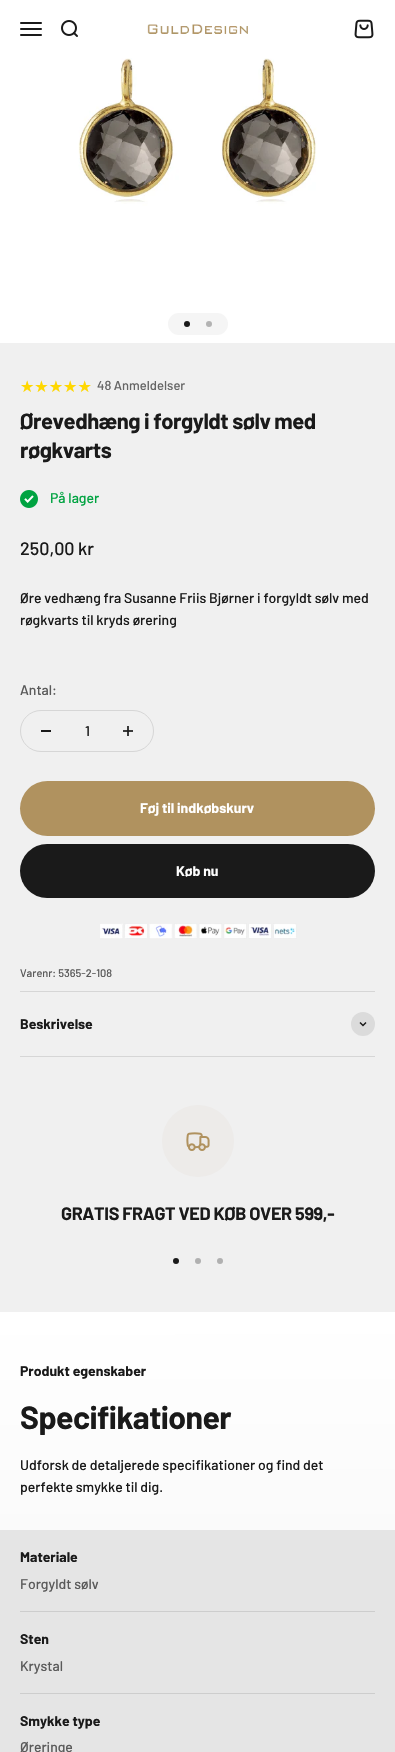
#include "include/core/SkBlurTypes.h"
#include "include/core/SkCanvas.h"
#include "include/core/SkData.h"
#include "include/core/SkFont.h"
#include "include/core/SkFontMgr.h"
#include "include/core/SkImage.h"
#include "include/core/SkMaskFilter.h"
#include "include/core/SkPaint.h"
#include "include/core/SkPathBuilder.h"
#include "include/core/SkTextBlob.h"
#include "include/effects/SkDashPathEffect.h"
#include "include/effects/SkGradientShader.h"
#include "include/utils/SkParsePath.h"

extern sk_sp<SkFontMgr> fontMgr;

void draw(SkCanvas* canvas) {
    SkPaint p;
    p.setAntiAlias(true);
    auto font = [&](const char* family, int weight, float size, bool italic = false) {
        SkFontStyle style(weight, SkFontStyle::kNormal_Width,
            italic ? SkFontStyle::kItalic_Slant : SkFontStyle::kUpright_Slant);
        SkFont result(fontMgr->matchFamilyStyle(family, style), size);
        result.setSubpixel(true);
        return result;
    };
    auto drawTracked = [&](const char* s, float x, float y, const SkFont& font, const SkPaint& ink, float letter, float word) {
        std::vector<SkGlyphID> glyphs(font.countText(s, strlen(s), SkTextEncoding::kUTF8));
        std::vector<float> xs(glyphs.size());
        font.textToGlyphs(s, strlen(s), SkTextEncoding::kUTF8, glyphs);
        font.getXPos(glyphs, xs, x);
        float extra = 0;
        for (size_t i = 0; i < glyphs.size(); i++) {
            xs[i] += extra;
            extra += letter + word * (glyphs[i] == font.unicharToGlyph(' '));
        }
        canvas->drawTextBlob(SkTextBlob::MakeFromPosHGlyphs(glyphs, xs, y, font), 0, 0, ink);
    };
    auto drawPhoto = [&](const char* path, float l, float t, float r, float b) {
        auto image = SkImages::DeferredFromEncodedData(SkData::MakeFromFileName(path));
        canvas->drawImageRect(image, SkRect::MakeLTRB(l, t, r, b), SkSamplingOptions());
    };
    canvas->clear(0xFFF0F0F0);
    p.setColor(0xFF3A3A3A);
    canvas->drawRect(SkRect::MakeLTRB(123, 730, 133, 732), p);
    drawPhoto("media/5.png", 0, 0, 395, 343);
    drawPhoto("media/1.png", 20, 22, 42, 36);
    drawPhoto("media/2.png", 61, 20, 78, 37);
    drawPhoto("media/3.png", 147, 24, 248, 34);
    drawPhoto("media/4.png", 354, 19, 374, 39);
    p.setColor(0xFFF5F5F5);
    canvas->drawRoundRect(SkRect::MakeLTRB(168, 313, 228, 335), 11, 11, p);
    p.setColor(0xFF1A1A1A);
    canvas->drawCircle(187, 324, 3, p);
    p.setColor(0xFFB3B3B3);
    canvas->drawCircle(209, 324, 3, p);
    auto font1 = font("DejaVu Sans", 400, 16);
    p.setColor(0xFFFFD700);
    canvas->drawString("★★★★★", 20, 392, font1, p);
    auto font2 = font("Barlow", 500, 13);
    p.setColor(0xFF666666);
    canvas->drawString("48 Anmeldelser", 97, 390, font2, p);
    auto font3 = font("Barlow", 700, 22);
    p.setColor(0xFF1A1A1A);
    drawTracked("Ørevedhæng i forgyldt sølv med", 20, 429, font3, p, -0.45f, 0);
    drawTracked("røgkvarts", 20, 458, font3, p, -0.45f, 0);
    drawPhoto("media/6.png", 20, 490, 38, 508);
    auto font4 = font("Barlow", 500, 14);
    p.setColor(0xFF00A341);
    canvas->drawString("På lager", 50, 503, font4, p);
    auto font5 = font("Barlow", 500, 18);
    p.setColor(0xFF1A1A1A);
    canvas->drawString("250,00 kr", 20, 555, font5, p);
    canvas->drawString("Øre vedhæng fra Susanne Friis Bjørner i forgyldt sølv med", 20, 603, font4, p);
    canvas->drawString("røgkvarts til kryds ørering", 20, 625, font4, p);
    p.setColor(0xFF5A5A5A);
    canvas->drawString("Antal:", 20, 695, font4, p);
    p.setStyle(SkPaint::kStroke_Style);
    p.setStrokeWidth(1);
    p.setColor(0xFFD6D6D6);
    canvas->drawRoundRect(SkRect::MakeLTRB(20.5f, 710.5f, 153.5f, 751.5f), 20.5f, 20.5f, p);
    p.setStyle(SkPaint::kFill_Style);
    p.setColor(0xFF1A1A1A);
    canvas->drawRect(SkRect::MakeLTRB(41, 730, 51, 732), p);
    canvas->drawString("1", 85, 736, font4, p);
    p.setColor(0xFF3A3A3A);
    canvas->drawRect(SkRect::MakeLTRB(127, 726, 129, 736), p);
    p.setColor(0xFF1F1F1F);
    canvas->drawRect(SkRect::MakeLTRB(127, 730, 129, 732), p);
    p.setColor(0xFFB0925F);
    canvas->drawRoundRect(SkRect::MakeLTRB(20, 781, 375, 836), 27.5f, 27.5f, p);
    auto font6 = font("Barlow", 700, 14);
    p.setColor(0xFFFFFFFF);
    canvas->drawString("Føj til indkøbskurv", 140, 813, font6, p);
    p.setColor(0xFF1A1A1A);
    canvas->drawRoundRect(SkRect::MakeLTRB(20, 844, 375, 898), 27, 27, p);
    p.setColor(0xFFFFFFFF);
    canvas->drawString("Køb nu", 176, 876, font6, p);
    drawPhoto("media/7.png", 100, 923, 297, 939);
    auto font7 = font("Barlow", 500, 11);
    p.setColor(0xFF5A5A5A);
    canvas->drawString("Varenr: 5365-2-108", 20, 977, font7, p);
    p.setColor(0xFFD6D6D6);
    canvas->drawRect(SkRect::MakeLTRB(20, 991, 375, 992), p);
    canvas->drawRect(SkRect::MakeLTRB(20, 1056, 375, 1057), p);
    p.setColor(0xFF1A1A1A);
    canvas->drawString("Beskrivelse", 20, 1029, font6, p);
    p.setColor(0xFFDBDBDB);
    canvas->drawCircle(363, 1024, 12, p);
    p.setStyle(SkPaint::kStroke_Style);
    p.setStrokeWidth(1.5f);
    p.setColor(0xFF1A1A1A);
    canvas->drawPath(SkPathBuilder().moveTo(360, 1022.5f).lineTo(363, 1025.5f).lineTo(366, 1022.5f).detach(), p);
    p.setStyle(SkPaint::kFill_Style);
    p.setColor(0xFFEDEBE9);
    canvas->drawCircle(198, 1141, 36, p);
    drawPhoto("media/8.png", 186, 1132, 210, 1151);
    auto font8 = font("Barlow", 700, 18);
    p.setColor(0xFF1A1A1A);
    drawTracked("GRATIS FRAGT VED KØB OVER 599,-", 61, 1220, font8, p, -0.35f, 0);
    canvas->drawCircle(176, 1261, 3, p);
    p.setColor(0xFFB0B0B0);
    canvas->drawCircle(198, 1261, 3, p);
    canvas->drawCircle(220, 1261, 3, p);
    {
        const SkColor colors[] = {0xFFFFFFFF, 0xFFF0F0F0};
        const float stops[] = {0, 1};
        const SkPoint ends[] = {{197, 1312}, {198, 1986}};
        p.setShader(SkGradientShader::MakeLinear(ends, colors, stops, 2, SkTileMode::kClamp));
        p.setAlpha(255);
    }
    canvas->drawRect(SkRect::MakeLTRB(0, 1312, 395, 1530), p);
    p.setShader(nullptr);
    p.setColor(0xFF1A1A1A);
    canvas->drawString("Produkt egenskaber", 20, 1376, font6, p);
    auto font9 = font("Barlow", 700, 32);
    drawTracked("Specifikationer", 20, 1429, font9, p, -0.6f, 0);
    canvas->drawString("Udforsk de detaljerede specifikationer og find det", 20, 1470, font4, p);
    canvas->drawString("perfekte smykke til dig.", 20, 1492, font4, p);
    p.setColor(0xFFE5E5E5);
    canvas->drawRect(SkRect::MakeLTRB(0, 1530, 395, 1752), p);
    p.setColor(0xFF1A1A1A);
    canvas->drawString("Materiale", 20, 1562, font6, p);
    p.setColor(0xFF5A5A5A);
    canvas->drawString("Forgyldt sølv", 20, 1589, font4, p);
    p.setColor(0xFFCDCDCD);
    canvas->drawRect(SkRect::MakeLTRB(20, 1611, 375, 1612), p);
    p.setColor(0xFF1A1A1A);
    canvas->drawString("Sten", 20, 1644, font6, p);
    p.setColor(0xFF5A5A5A);
    canvas->drawString("Krystal", 20, 1671, font4, p);
    p.setColor(0xFFCDCDCD);
    canvas->drawRect(SkRect::MakeLTRB(20, 1693, 375, 1694), p);
    p.setColor(0xFF1A1A1A);
    canvas->drawString("Smykke type", 20, 1726, font6, p);
    p.setColor(0xFF5A5A5A);
    canvas->drawString("Øreringe", 20, 1752, font4, p);
}
